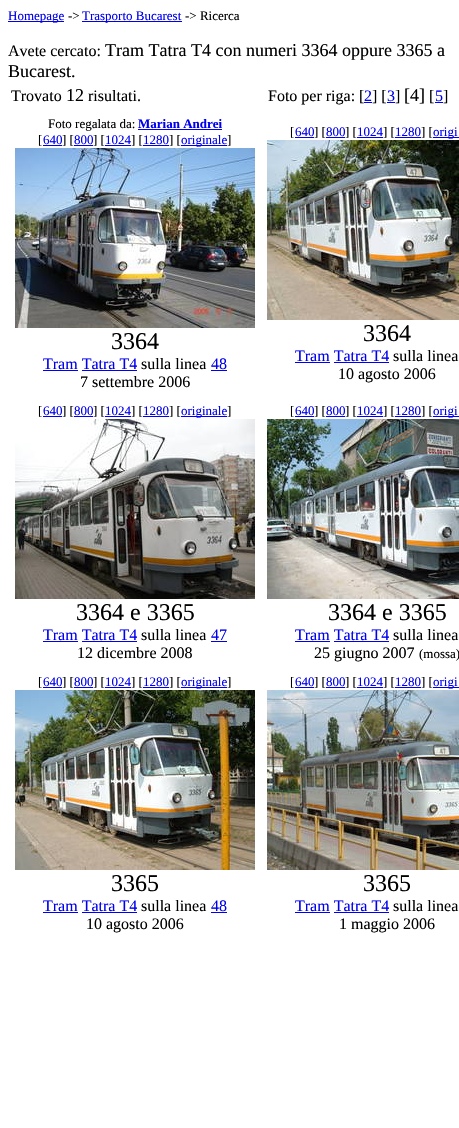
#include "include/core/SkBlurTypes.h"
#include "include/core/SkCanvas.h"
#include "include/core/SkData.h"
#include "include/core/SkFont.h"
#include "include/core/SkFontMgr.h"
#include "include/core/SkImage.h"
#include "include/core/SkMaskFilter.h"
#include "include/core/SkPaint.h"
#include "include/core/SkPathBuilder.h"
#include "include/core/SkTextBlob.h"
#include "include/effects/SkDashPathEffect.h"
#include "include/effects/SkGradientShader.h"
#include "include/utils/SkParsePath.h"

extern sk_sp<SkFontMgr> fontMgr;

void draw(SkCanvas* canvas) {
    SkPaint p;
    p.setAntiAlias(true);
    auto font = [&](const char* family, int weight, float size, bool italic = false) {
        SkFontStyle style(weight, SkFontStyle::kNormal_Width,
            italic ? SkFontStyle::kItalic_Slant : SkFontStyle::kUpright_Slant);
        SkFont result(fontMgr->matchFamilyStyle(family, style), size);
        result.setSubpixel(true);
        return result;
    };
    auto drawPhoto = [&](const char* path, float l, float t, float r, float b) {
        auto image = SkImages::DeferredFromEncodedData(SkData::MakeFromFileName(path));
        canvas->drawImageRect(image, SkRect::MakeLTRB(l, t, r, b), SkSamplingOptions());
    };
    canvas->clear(0xFFFFFFFF);
    p.setColor(0xFF0000EE);
    canvas->drawRect(SkRect::MakeLTRB(8, 21, 64, 22), p);
    auto font1 = font("Liberation Serif", 400, 13);
    canvas->drawString("Homepage", 8, 20, font1, p);
    p.setColor(0xFF000000);
    canvas->drawString("->", 68, 20, font1, p);
    p.setColor(0xFF0000EE);
    canvas->drawRect(SkRect::MakeLTRB(82, 21, 182, 22), p);
    canvas->drawString("Trasporto Bucarest", 82, 20, font1, p);
    p.setColor(0xFF000000);
    canvas->drawString("-> Ricerca", 185, 20, font1, p);
    auto font2 = font("Liberation Serif", 400, 16);
    canvas->drawString("Avete cercato:", 8, 56, font2, p);
    auto font3 = font("Liberation Serif", 400, 18);
    canvas->drawString("Tram Tatra T4 con numeri 3364 oppure 3365 a", 105, 56, font3, p);
    canvas->drawString("Bucarest.", 8, 77, font3, p);
    canvas->drawString("Trovato", 11, 101, font2, p);
    canvas->drawString("12", 66, 101, font3, p);
    canvas->drawString("risultati.", 88, 101, font2, p);
    canvas->drawString("Foto per riga: [", 268, 101, font2, p);
    p.setColor(0xFF0000EE);
    canvas->drawString("2", 364, 101, font2, p);
    canvas->drawRect(SkRect::MakeLTRB(364, 102, 372, 103), p);
    p.setColor(0xFF000000);
    canvas->drawString("] [", 372, 101, font2, p);
    p.setColor(0xFF0000EE);
    canvas->drawString("3", 387, 101, font2, p);
    canvas->drawRect(SkRect::MakeLTRB(387, 102, 395, 103), p);
    p.setColor(0xFF000000);
    canvas->drawString("]", 395, 101, font2, p);
    canvas->drawString("[4]", 404, 101, font3, p);
    canvas->drawString("[", 429, 101, font2, p);
    p.setColor(0xFF0000EE);
    canvas->drawString("5", 435, 101, font2, p);
    canvas->drawRect(SkRect::MakeLTRB(435, 102, 443, 103), p);
    p.setColor(0xFF000000);
    canvas->drawString("]", 443, 101, font2, p);
    canvas->drawString("Foto regalata da:", 48, 128, font1, p);
    auto font4 = font("Liberation Serif", 700, 13);
    p.setColor(0xFF0000EE);
    canvas->drawString("Marian Andrei", 138, 128, font4, p);
    canvas->drawRect(SkRect::MakeLTRB(138, 129, 222, 130), p);
    p.setColor(0xFF000000);
    canvas->drawString("[", 38, 144, font1, p);
    p.setColor(0xFF0000EE);
    canvas->drawRect(SkRect::MakeLTRB(43, 145, 62, 146), p);
    canvas->drawString("640", 43, 144, font1, p);
    p.setColor(0xFF000000);
    canvas->drawString("] [", 62, 144, font1, p);
    p.setColor(0xFF0000EE);
    canvas->drawRect(SkRect::MakeLTRB(74, 145, 93, 146), p);
    canvas->drawString("800", 74, 144, font1, p);
    p.setColor(0xFF000000);
    canvas->drawString("] [", 93, 144, font1, p);
    p.setColor(0xFF0000EE);
    canvas->drawRect(SkRect::MakeLTRB(105, 145, 131, 146), p);
    canvas->drawString("1024", 105, 144, font1, p);
    p.setColor(0xFF000000);
    canvas->drawString("] [", 131, 144, font1, p);
    p.setColor(0xFF0000EE);
    canvas->drawRect(SkRect::MakeLTRB(143, 145, 169, 146), p);
    canvas->drawString("1280", 143, 144, font1, p);
    p.setColor(0xFF000000);
    canvas->drawString("] [", 169, 144, font1, p);
    p.setColor(0xFF0000EE);
    canvas->drawRect(SkRect::MakeLTRB(181, 145, 227, 146), p);
    canvas->drawString("originale", 181, 144, font1, p);
    p.setColor(0xFF000000);
    canvas->drawString("]", 227, 144, font1, p);
    drawPhoto("media/1.png", 15, 148, 255, 328);
    auto font5 = font("Liberation Serif", 400, 24);
    canvas->drawString("3364", 111, 349, font5, p);
    p.setColor(0xFF0000EE);
    canvas->drawString("Tram Tatra T4", 43, 369, font2, p);
    canvas->drawRect(SkRect::MakeLTRB(43, 370, 78, 371), p);
    p.setColor(0xFF000000);
    canvas->drawString("sulla linea", 141, 369, font2, p);
    p.setColor(0xFF0000EE);
    canvas->drawString("48", 211, 369, font2, p);
    canvas->drawRect(SkRect::MakeLTRB(211, 370, 227, 371), p);
    canvas->drawRect(SkRect::MakeLTRB(82, 370, 137, 371), p);
    p.setColor(0xFF000000);
    canvas->drawString("7 settembre 2006", 80, 387, font2, p);
    canvas->drawString("[", 290, 136, font1, p);
    p.setColor(0xFF0000EE);
    canvas->drawRect(SkRect::MakeLTRB(295, 137, 314, 138), p);
    canvas->drawString("640", 295, 136, font1, p);
    p.setColor(0xFF000000);
    canvas->drawString("] [", 314, 136, font1, p);
    p.setColor(0xFF0000EE);
    canvas->drawRect(SkRect::MakeLTRB(326, 137, 345, 138), p);
    canvas->drawString("800", 326, 136, font1, p);
    p.setColor(0xFF000000);
    canvas->drawString("] [", 345, 136, font1, p);
    p.setColor(0xFF0000EE);
    canvas->drawRect(SkRect::MakeLTRB(357, 137, 383, 138), p);
    canvas->drawString("1024", 357, 136, font1, p);
    p.setColor(0xFF000000);
    canvas->drawString("] [", 383, 136, font1, p);
    p.setColor(0xFF0000EE);
    canvas->drawRect(SkRect::MakeLTRB(395, 137, 421, 138), p);
    canvas->drawString("1280", 395, 136, font1, p);
    p.setColor(0xFF000000);
    canvas->drawString("] [", 421, 136, font1, p);
    p.setColor(0xFF0000EE);
    canvas->drawRect(SkRect::MakeLTRB(433, 137, 459, 138), p);
    canvas->drawString("origi", 433, 136, font1, p);
    drawPhoto("media/2.png", 267, 140, 459, 320);
    p.setColor(0xFF000000);
    canvas->drawString("3364", 363, 341, font5, p);
    p.setColor(0xFF0000EE);
    canvas->drawString("Tram Tatra T4", 295, 361, font2, p);
    canvas->drawRect(SkRect::MakeLTRB(295, 362, 330, 363), p);
    p.setColor(0xFF000000);
    canvas->drawString("sulla linea", 393, 361, font2, p);
    p.setColor(0xFF0000EE);
    canvas->drawRect(SkRect::MakeLTRB(334, 362, 389, 363), p);
    p.setColor(0xFF000000);
    canvas->drawString("10 agosto 2006", 338, 379, font2, p);
    canvas->drawString("[", 38, 415, font1, p);
    p.setColor(0xFF0000EE);
    canvas->drawRect(SkRect::MakeLTRB(43, 416, 62, 417), p);
    canvas->drawString("640", 43, 415, font1, p);
    p.setColor(0xFF000000);
    canvas->drawString("] [", 62, 415, font1, p);
    p.setColor(0xFF0000EE);
    canvas->drawRect(SkRect::MakeLTRB(74, 416, 93, 417), p);
    canvas->drawString("800", 74, 415, font1, p);
    p.setColor(0xFF000000);
    canvas->drawString("] [", 93, 415, font1, p);
    p.setColor(0xFF0000EE);
    canvas->drawRect(SkRect::MakeLTRB(105, 416, 131, 417), p);
    canvas->drawString("1024", 105, 415, font1, p);
    p.setColor(0xFF000000);
    canvas->drawString("] [", 131, 415, font1, p);
    p.setColor(0xFF0000EE);
    canvas->drawRect(SkRect::MakeLTRB(143, 416, 169, 417), p);
    canvas->drawString("1280", 143, 415, font1, p);
    p.setColor(0xFF000000);
    canvas->drawString("] [", 169, 415, font1, p);
    p.setColor(0xFF0000EE);
    canvas->drawRect(SkRect::MakeLTRB(181, 416, 227, 417), p);
    canvas->drawString("originale", 181, 415, font1, p);
    p.setColor(0xFF000000);
    canvas->drawString("]", 227, 415, font1, p);
    drawPhoto("media/3.png", 15, 419, 255, 599);
    canvas->drawString("3364 e 3365", 76, 620, font5, p);
    p.setColor(0xFF0000EE);
    canvas->drawString("Tram Tatra T4", 43, 640, font2, p);
    canvas->drawRect(SkRect::MakeLTRB(43, 641, 78, 642), p);
    p.setColor(0xFF000000);
    canvas->drawString("sulla linea", 141, 640, font2, p);
    p.setColor(0xFF0000EE);
    canvas->drawString("47", 211, 640, font2, p);
    canvas->drawRect(SkRect::MakeLTRB(211, 641, 227, 642), p);
    canvas->drawRect(SkRect::MakeLTRB(82, 641, 137, 642), p);
    p.setColor(0xFF000000);
    canvas->drawString("12 dicembre 2008", 77, 658, font2, p);
    canvas->drawString("[", 290, 415, font1, p);
    p.setColor(0xFF0000EE);
    canvas->drawRect(SkRect::MakeLTRB(295, 416, 314, 417), p);
    canvas->drawString("640", 295, 415, font1, p);
    p.setColor(0xFF000000);
    canvas->drawString("] [", 314, 415, font1, p);
    p.setColor(0xFF0000EE);
    canvas->drawRect(SkRect::MakeLTRB(326, 416, 345, 417), p);
    canvas->drawString("800", 326, 415, font1, p);
    p.setColor(0xFF000000);
    canvas->drawString("] [", 345, 415, font1, p);
    p.setColor(0xFF0000EE);
    canvas->drawRect(SkRect::MakeLTRB(357, 416, 383, 417), p);
    canvas->drawString("1024", 357, 415, font1, p);
    p.setColor(0xFF000000);
    canvas->drawString("] [", 383, 415, font1, p);
    p.setColor(0xFF0000EE);
    canvas->drawRect(SkRect::MakeLTRB(395, 416, 421, 417), p);
    canvas->drawString("1280", 395, 415, font1, p);
    p.setColor(0xFF000000);
    canvas->drawString("] [", 421, 415, font1, p);
    p.setColor(0xFF0000EE);
    canvas->drawRect(SkRect::MakeLTRB(433, 416, 459, 417), p);
    canvas->drawString("origi", 433, 415, font1, p);
    drawPhoto("media/4.png", 267, 419, 459, 599);
    p.setColor(0xFF000000);
    canvas->drawString("3364 e 3365", 328, 620, font5, p);
    p.setColor(0xFF0000EE);
    canvas->drawString("Tram Tatra T4", 295, 640, font2, p);
    canvas->drawRect(SkRect::MakeLTRB(295, 641, 330, 642), p);
    p.setColor(0xFF000000);
    canvas->drawString("sulla linea", 393, 640, font2, p);
    p.setColor(0xFF0000EE);
    canvas->drawRect(SkRect::MakeLTRB(334, 641, 389, 642), p);
    p.setColor(0xFF000000);
    canvas->drawString("25 giugno 2007", 314, 658, font2, p);
    canvas->drawString("(mossa)", 419, 658, font1, p);
    canvas->drawString("[", 38, 686, font1, p);
    p.setColor(0xFF0000EE);
    canvas->drawRect(SkRect::MakeLTRB(43, 687, 62, 688), p);
    canvas->drawString("640", 43, 686, font1, p);
    p.setColor(0xFF000000);
    canvas->drawString("] [", 62, 686, font1, p);
    p.setColor(0xFF0000EE);
    canvas->drawRect(SkRect::MakeLTRB(74, 687, 93, 688), p);
    canvas->drawString("800", 74, 686, font1, p);
    p.setColor(0xFF000000);
    canvas->drawString("] [", 93, 686, font1, p);
    p.setColor(0xFF0000EE);
    canvas->drawRect(SkRect::MakeLTRB(105, 687, 131, 688), p);
    canvas->drawString("1024", 105, 686, font1, p);
    p.setColor(0xFF000000);
    canvas->drawString("] [", 131, 686, font1, p);
    p.setColor(0xFF0000EE);
    canvas->drawRect(SkRect::MakeLTRB(143, 687, 169, 688), p);
    canvas->drawString("1280", 143, 686, font1, p);
    p.setColor(0xFF000000);
    canvas->drawString("] [", 169, 686, font1, p);
    p.setColor(0xFF0000EE);
    canvas->drawRect(SkRect::MakeLTRB(181, 687, 227, 688), p);
    canvas->drawString("originale", 181, 686, font1, p);
    p.setColor(0xFF000000);
    canvas->drawString("]", 227, 686, font1, p);
    drawPhoto("media/5.png", 15, 690, 255, 870);
    canvas->drawString("3365", 111, 891, font5, p);
    p.setColor(0xFF0000EE);
    canvas->drawString("Tram Tatra T4", 43, 911, font2, p);
    canvas->drawRect(SkRect::MakeLTRB(43, 912, 78, 913), p);
    p.setColor(0xFF000000);
    canvas->drawString("sulla linea", 141, 911, font2, p);
    p.setColor(0xFF0000EE);
    canvas->drawString("48", 211, 911, font2, p);
    canvas->drawRect(SkRect::MakeLTRB(211, 912, 227, 913), p);
    canvas->drawRect(SkRect::MakeLTRB(82, 912, 137, 913), p);
    p.setColor(0xFF000000);
    canvas->drawString("10 agosto 2006", 86, 929, font2, p);
    canvas->drawString("[", 290, 686, font1, p);
    p.setColor(0xFF0000EE);
    canvas->drawRect(SkRect::MakeLTRB(295, 687, 314, 688), p);
    canvas->drawString("640", 295, 686, font1, p);
    p.setColor(0xFF000000);
    canvas->drawString("] [", 314, 686, font1, p);
    p.setColor(0xFF0000EE);
    canvas->drawRect(SkRect::MakeLTRB(326, 687, 345, 688), p);
    canvas->drawString("800", 326, 686, font1, p);
    p.setColor(0xFF000000);
    canvas->drawString("] [", 345, 686, font1, p);
    p.setColor(0xFF0000EE);
    canvas->drawRect(SkRect::MakeLTRB(357, 687, 383, 688), p);
    canvas->drawString("1024", 357, 686, font1, p);
    p.setColor(0xFF000000);
    canvas->drawString("] [", 383, 686, font1, p);
    p.setColor(0xFF0000EE);
    canvas->drawRect(SkRect::MakeLTRB(395, 687, 421, 688), p);
    canvas->drawString("1280", 395, 686, font1, p);
    p.setColor(0xFF000000);
    canvas->drawString("] [", 421, 686, font1, p);
    p.setColor(0xFF0000EE);
    canvas->drawRect(SkRect::MakeLTRB(433, 687, 459, 688), p);
    canvas->drawString("origi", 433, 686, font1, p);
    drawPhoto("media/6.png", 267, 690, 459, 870);
    p.setColor(0xFF000000);
    canvas->drawString("3365", 363, 891, font5, p);
    p.setColor(0xFF0000EE);
    canvas->drawString("Tram Tatra T4", 295, 911, font2, p);
    canvas->drawRect(SkRect::MakeLTRB(295, 912, 330, 913), p);
    p.setColor(0xFF000000);
    canvas->drawString("sulla linea", 393, 911, font2, p);
    p.setColor(0xFF0000EE);
    canvas->drawRect(SkRect::MakeLTRB(334, 912, 389, 913), p);
    p.setColor(0xFF000000);
    canvas->drawString("1 maggio 2006", 339, 929, font2, p);
}
